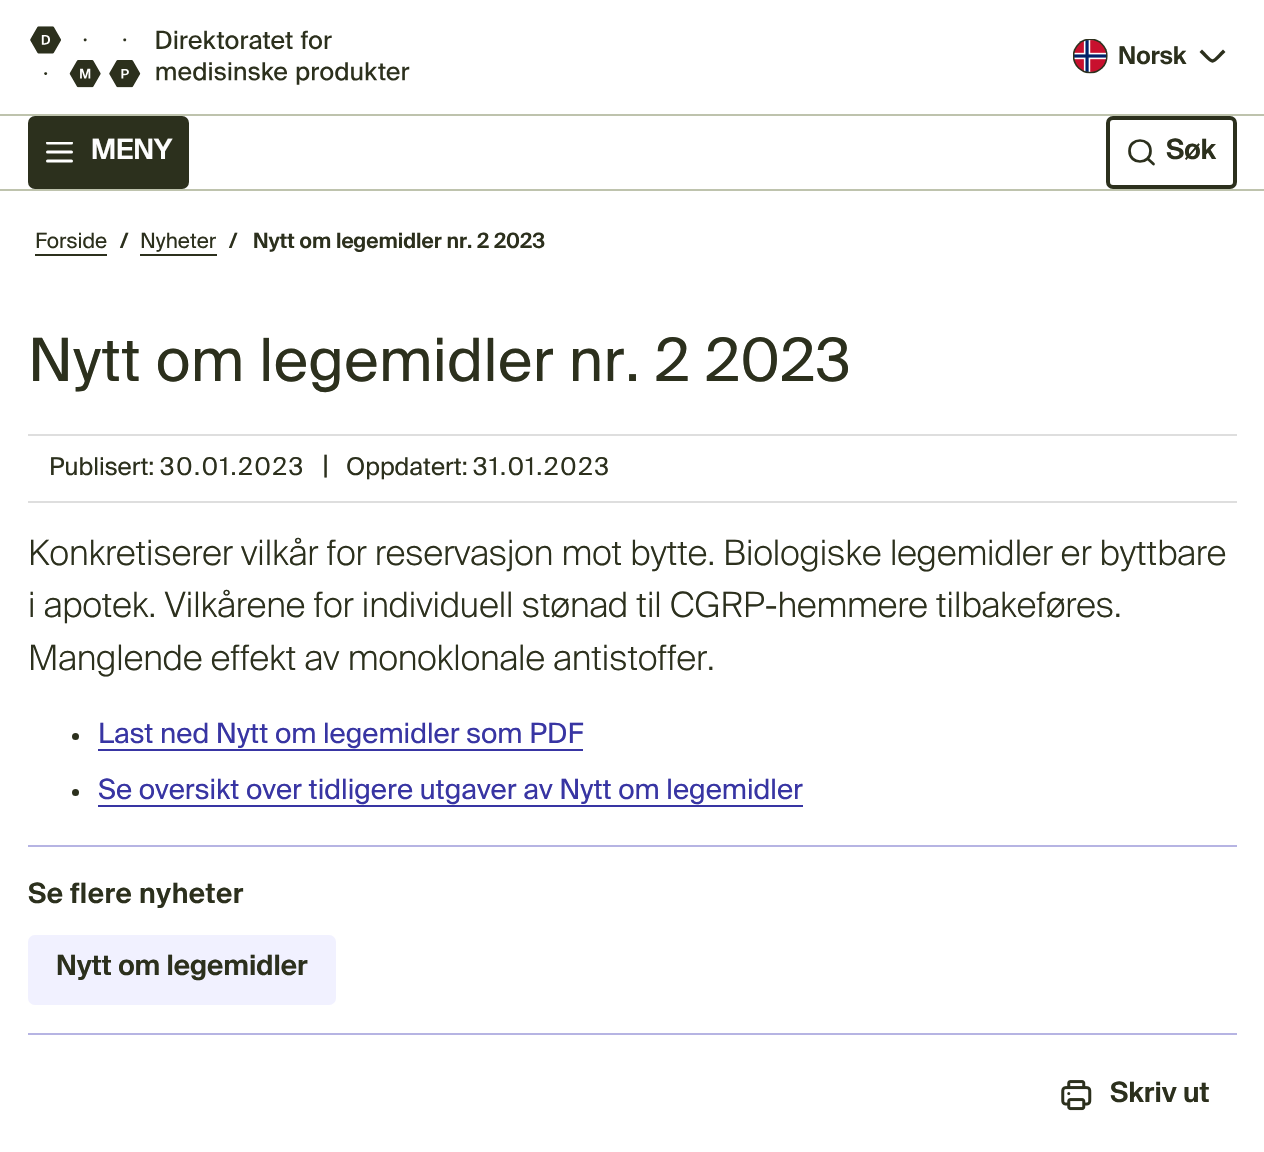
#include "include/core/SkBlurTypes.h"
#include "include/core/SkCanvas.h"
#include "include/core/SkData.h"
#include "include/core/SkFont.h"
#include "include/core/SkFontMgr.h"
#include "include/core/SkImage.h"
#include "include/core/SkMaskFilter.h"
#include "include/core/SkPaint.h"
#include "include/core/SkPathBuilder.h"
#include "include/core/SkTextBlob.h"
#include "include/effects/SkDashPathEffect.h"
#include "include/effects/SkGradientShader.h"
#include "include/utils/SkParsePath.h"

extern sk_sp<SkFontMgr> fontMgr;

void draw(SkCanvas* canvas) {
    SkPaint p;
    p.setAntiAlias(true);
    auto font = [&](const char* family, int weight, float size, bool italic = false) {
        SkFontStyle style(weight, SkFontStyle::kNormal_Width,
            italic ? SkFontStyle::kItalic_Slant : SkFontStyle::kUpright_Slant);
        SkFont result(fontMgr->matchFamilyStyle(family, style), size);
        result.setSubpixel(true);
        return result;
    };
    auto drawTracked = [&](const char* s, float x, float y, const SkFont& font, const SkPaint& ink, float letter, float word) {
        std::vector<SkGlyphID> glyphs(font.countText(s, strlen(s), SkTextEncoding::kUTF8));
        std::vector<float> xs(glyphs.size());
        font.textToGlyphs(s, strlen(s), SkTextEncoding::kUTF8, glyphs);
        font.getXPos(glyphs, xs, x);
        float extra = 0;
        for (size_t i = 0; i < glyphs.size(); i++) {
            xs[i] += extra;
            extra += letter + word * (glyphs[i] == font.unicharToGlyph(' '));
        }
        canvas->drawTextBlob(SkTextBlob::MakeFromPosHGlyphs(glyphs, xs, y, font), 0, 0, ink);
    };
    auto drawPhoto = [&](const char* path, float l, float t, float r, float b) {
        auto image = SkImages::DeferredFromEncodedData(SkData::MakeFromFileName(path));
        canvas->drawImageRect(image, SkRect::MakeLTRB(l, t, r, b), SkSamplingOptions());
    };
    canvas->clear(0xFFFFFFFF);
    drawPhoto("media/1.png", 30, 26, 410, 88);
    drawPhoto("media/2.png", 1073, 39, 1108, 74);
    auto font1 = font("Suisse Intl", 600, 24.5f);
    p.setColor(0xFF2C301D);
    canvas->drawString("Norsk", 1118, 64, font1, p);
    p.setStyle(SkPaint::kStroke_Style);
    p.setStrokeWidth(3.5f);
    p.setStrokeCap(SkPaint::kSquare_Cap);
    p.setStrokeJoin(SkPaint::kRound_Join);
    canvas->drawPath(SkPathBuilder().moveTo(1223, 52).cubicTo(1211, 64, 1214, 64, 1202, 52).detach(), p);
    p.setStyle(SkPaint::kFill_Style);
    p.setColor(0xFFBEC3AD);
    canvas->drawRect(SkRect::MakeLTRB(0, 114, 1264, 116), p);
    p.setColor(0xFF2C301D);
    canvas->drawRoundRect(SkRect::MakeLTRB(28, 116, 189, 189), 7, 7, p);
    canvas->save();
    canvas->clipRect(SkRect::MakeLTRB(46, 142, 74, 163));
    p.setStyle(SkPaint::kStroke_Style);
    p.setStrokeWidth(3);
    p.setStrokeCap(SkPaint::kRound_Cap);
    p.setColor(0xFFFFFFFF);
    canvas->drawPath(SkPathBuilder().moveTo(47.5f, 143).lineTo(71.5f, 143).moveTo(47.5f, 152).lineTo(71.5f, 152).moveTo(47.5f, 161).lineTo(71.5f, 161).detach(), p);
    canvas->restore();
    auto font2 = font("Suisse Intl", 600, 28);
    p.setStyle(SkPaint::kFill_Style);
    p.setColor(0xFFFDFDFD);
    canvas->drawString("MENY", 91, 159, font2, p);
    p.setStyle(SkPaint::kStroke_Style);
    p.setStrokeWidth(4);
    p.setStrokeCap(SkPaint::kButt_Cap);
    p.setStrokeJoin(SkPaint::kMiter_Join);
    p.setColor(0xFF2C301D);
    canvas->drawRoundRect(SkRect::MakeLTRB(1108, 118, 1235, 187), 5, 5, p);
    p.setStrokeWidth(2.7f);
    p.setStrokeCap(SkPaint::kRound_Cap);
    p.setStrokeJoin(SkPaint::kRound_Join);
    canvas->drawPath(SkPathBuilder().moveTo(1147.5f, 158.5f).lineTo(1153.5f, 164).moveTo(1150.5f, 151).cubicTo(1150.5f, 165, 1129.5f, 165, 1129.5f, 151).cubicTo(1129.5f, 137, 1150.5f, 137, 1150.5f, 151).close().detach(), p);
    p.setStyle(SkPaint::kFill_Style);
    canvas->drawString("Søk", 1166, 159, font2, p);
    p.setColor(0xFFBEC3AD);
    canvas->drawRect(SkRect::MakeLTRB(0, 189, 1264, 191), p);
    auto font3 = font("Suisse Intl", 400, 21);
    p.setColor(0xFF2C301D);
    canvas->drawString("Forside", 35, 248, font3, p);
    canvas->drawRect(SkRect::MakeLTRB(35, 254, 107, 256), p);
    auto font4 = font("Suisse Intl", 600, 21);
    canvas->drawString("/", 120, 248, font4, p);
    canvas->drawString("Nyheter", 140, 248, font3, p);
    canvas->drawRect(SkRect::MakeLTRB(140, 254, 217, 256), p);
    canvas->drawString("/", 229, 248, font4, p);
    canvas->drawString("Nytt om legemidler nr. 2 2023", 253, 248, font4, p);
    auto font5 = font("Suisse Intl", 400, 59.5f);
    drawTracked("Nytt om legemidler nr. 2 2023", 28, 381, font5, p, 0.45f, 0);
    p.setColor(0xFFDEDEDE);
    canvas->drawRect(SkRect::MakeLTRB(28, 434, 1237, 436), p);
    auto font6 = font("Suisse Intl", 400, 24.5f);
    p.setColor(0xFF2C301D);
    canvas->drawString("Publisert:", 49, 475, font6, p);
    drawTracked("30.01.2023", 160, 475, font6, p, 1.75f, 0);
    auto font7 = font("Suisse Intl", 400, 28);
    canvas->drawString("|", 322, 475, font7, p);
    canvas->drawString("Oppdatert:", 346, 475, font6, p);
    drawTracked("31.01.2023", 473, 475, font6, p, 1.75f, 0);
    p.setColor(0xFFDEDEDE);
    canvas->drawRect(SkRect::MakeLTRB(28, 501, 1237, 503), p);
    auto font8 = font("Suisse Intl", 300, 35);
    p.setColor(0xFF2C301D);
    {
        const struct { const char* s; float x, y; } items[] = {
            {"Konkretiserer vilkår for reservasjon mot bytte. Biologiske legemidler er byttbare", 28, 565},
            {"i apotek. Vilkårene for individuell stønad til CGRP-hemmere tilbakeføres.", 28, 617},
            {"Manglende effekt av monoklonale antistoffer.", 28, 670},
        };
        for (auto [s, x, y] : items) {
            canvas->drawString(s, x, y, font8, p);
        }
    }
    canvas->drawCircle(75.5f, 736.5f, 3.5f, p);
    p.setColor(0xFF3835A3);
    canvas->drawString("Last ned Nytt om legemidler som PDF", 98, 743, font7, p);
    canvas->drawRect(SkRect::MakeLTRB(98, 749, 583, 751), p);
    p.setColor(0xFF2C301D);
    canvas->drawCircle(75.5f, 792.5f, 3.5f, p);
    p.setColor(0xFF3835A3);
    canvas->drawString("Se oversikt over tidligere utgaver av Nytt om legemidler", 98, 799, font7, p);
    {
        const struct { float l, t, r, b; SkColor color; } items[] = {
            {98, 805, 803, 807, 0xFF3835A3},
            {28, 845, 1237, 847, 0xFFB6B4E3},
            {28, 1033, 1237, 1035, 0xFFB6B4E3},
        };
        for (auto [l, t, r, b, color] : items) {
            p.setColor(color);
            canvas->drawRect(SkRect::MakeLTRB(l, t, r, b), p);
        }
    }
    p.setColor(0xFF2C301D);
    drawTracked("Se flere nyheter", 28, 903, font2, p, 0.45f, 0);
    p.setColor(0xFFF1F1FF);
    canvas->drawRoundRect(SkRect::MakeLTRB(28, 935, 336, 1005), 7, 7, p);
    p.setColor(0xFF2C301D);
    canvas->drawString("Nytt om legemidler", 56, 975, font2, p);
    drawPhoto("media/3.png", 1061, 1080, 1092, 1111);
    canvas->drawString("Skriv ut", 1110, 1102, font2, p);
}
